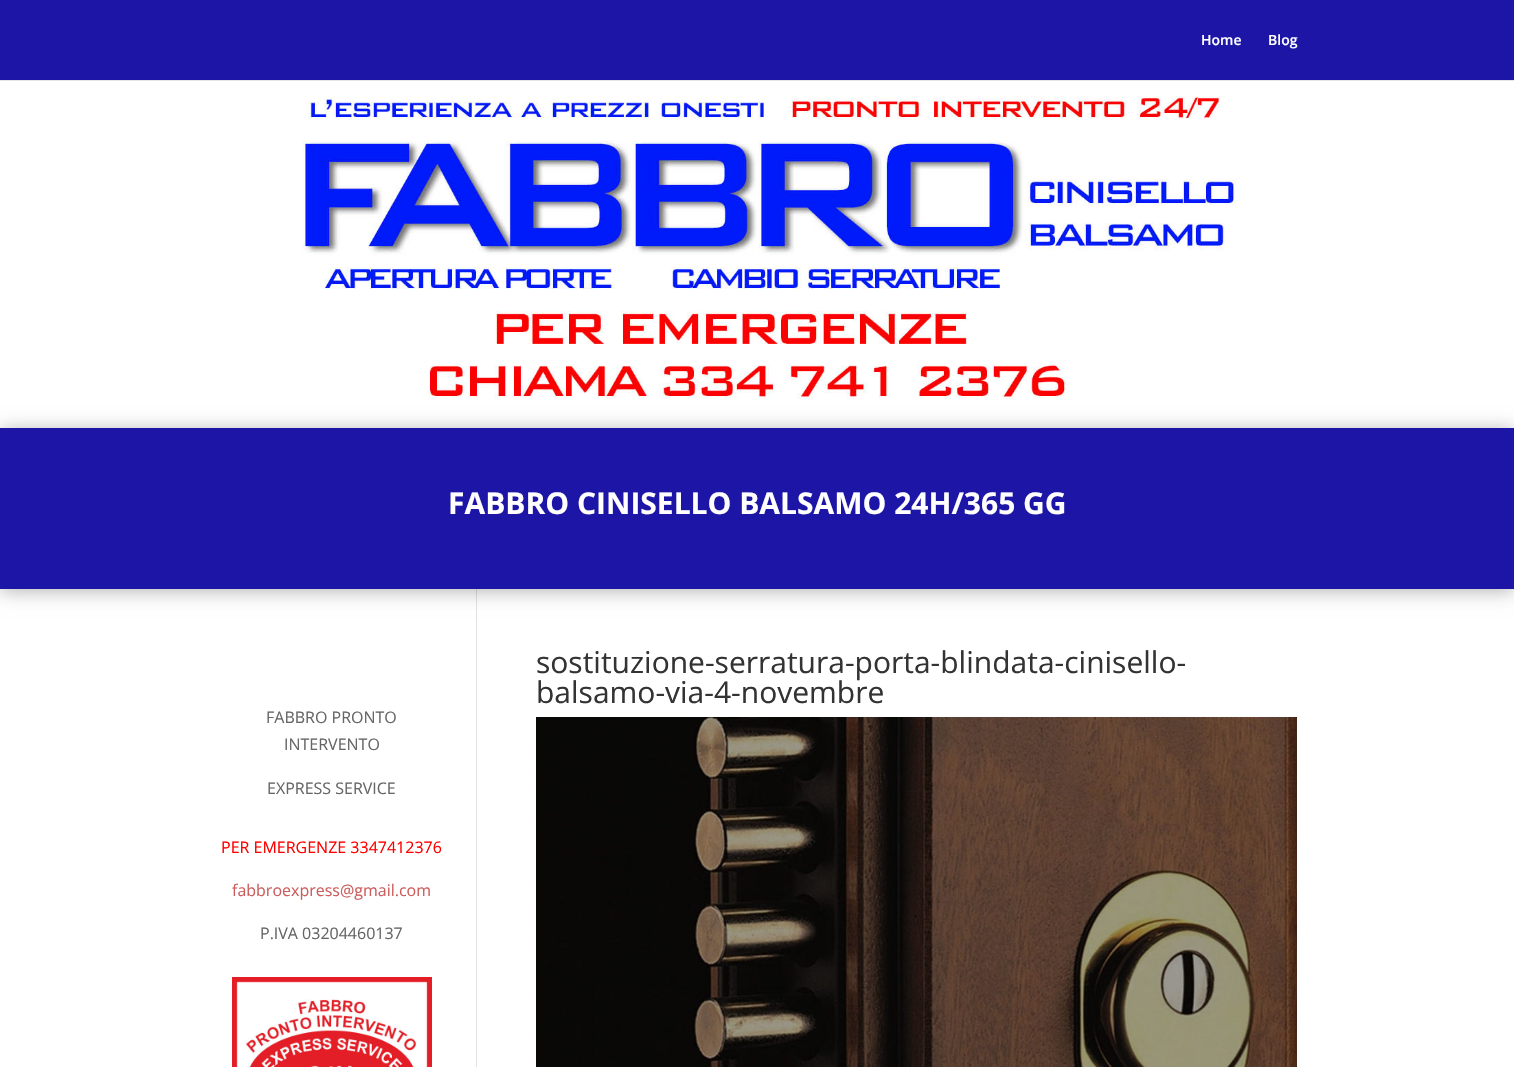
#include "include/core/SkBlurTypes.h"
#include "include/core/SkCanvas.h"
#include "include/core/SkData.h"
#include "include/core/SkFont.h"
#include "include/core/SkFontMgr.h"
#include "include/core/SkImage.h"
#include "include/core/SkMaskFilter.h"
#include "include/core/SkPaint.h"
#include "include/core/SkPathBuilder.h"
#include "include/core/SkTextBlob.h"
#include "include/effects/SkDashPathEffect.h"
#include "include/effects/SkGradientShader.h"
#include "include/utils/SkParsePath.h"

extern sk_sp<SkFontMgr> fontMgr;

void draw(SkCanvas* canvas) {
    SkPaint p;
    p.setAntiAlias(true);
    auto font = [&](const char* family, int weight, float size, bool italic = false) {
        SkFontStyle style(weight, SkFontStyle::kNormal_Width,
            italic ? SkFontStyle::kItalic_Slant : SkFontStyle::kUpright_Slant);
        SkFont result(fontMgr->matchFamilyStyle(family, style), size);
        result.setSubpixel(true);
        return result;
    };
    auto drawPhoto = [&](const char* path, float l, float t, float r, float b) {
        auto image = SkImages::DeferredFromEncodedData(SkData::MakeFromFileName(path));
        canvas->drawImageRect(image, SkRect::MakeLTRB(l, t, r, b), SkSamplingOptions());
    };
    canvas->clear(0xFFFFFFFF);
    p.setColor(0xFFE6E6E6);
    canvas->drawRect(SkRect::MakeLTRB(0, 80, 1514, 81), p);
    p.setColor(0xFF1C15A5);
    canvas->drawRect(SkRect::MakeLTRB(0, 0, 1514, 80), p);
    auto font1 = font("Open Sans", 600, 14);
    p.setColor(0xFFFFFFFF);
    canvas->drawString("Home", 1201, 45, font1, p);
    canvas->drawString("Blog", 1268, 45, font1, p);
    drawPhoto("media/1.png", 302, 96, 1237, 399);
    p.setColor(0xFFE2E2E2);
    canvas->drawRect(SkRect::MakeLTRB(476, 589, 477, 1067), p);
    p.setColor(0x4D000000);
    p.setMaskFilter(SkMaskFilter::MakeBlur(kNormal_SkBlurStyle, 9));
    canvas->drawRect(SkRect::MakeLTRB(0, 430, 1514, 591), p);
    p.setMaskFilter(nullptr);
    p.setColor(0xFF1C15A5);
    canvas->drawRect(SkRect::MakeLTRB(0, 428, 1514, 589), p);
    auto font2 = font("Open Sans", 700, 30);
    p.setColor(0xFFFFFFFF);
    canvas->drawString("FABBRO CINISELLO BALSAMO 24H/365 GG", 448, 514, font2, p);
    auto font3 = font("Open Sans", 400, 30);
    p.setColor(0xFF333333);
    canvas->drawString("sostituzione-serratura-porta-blindata-cinisello-", 536, 673, font3, p);
    canvas->drawString("balsamo-via-4-novembre", 536, 703, font3, p);
    drawPhoto("media/2.png", 536, 717, 1297, 1067);
    auto font4 = font("Open Sans", 400, 16);
    p.setColor(0xFF666666);
    {
        const struct { const char* s; float x, y; } items[] = {
            {"FABBRO PRONTO", 266, 723},
            {"INTERVENTO", 284, 750},
            {"EXPRESS SERVICE", 267, 794},
        };
        for (auto [s, x, y] : items) {
            canvas->drawString(s, x, y, font4, p);
        }
    }
    p.setColor(0xFFFF0000);
    canvas->drawString("PER EMERGENZE 3347412376", 221, 853, font4, p);
    p.setColor(0xFFCD5C5C);
    canvas->drawString("fabbroexpress@gmail.com", 232, 896, font4, p);
    p.setColor(0xFF666666);
    canvas->drawString("P.IVA 03204460137", 260, 939, font4, p);
    drawPhoto("media/3.png", 232, 977, 432, 1067);
}
